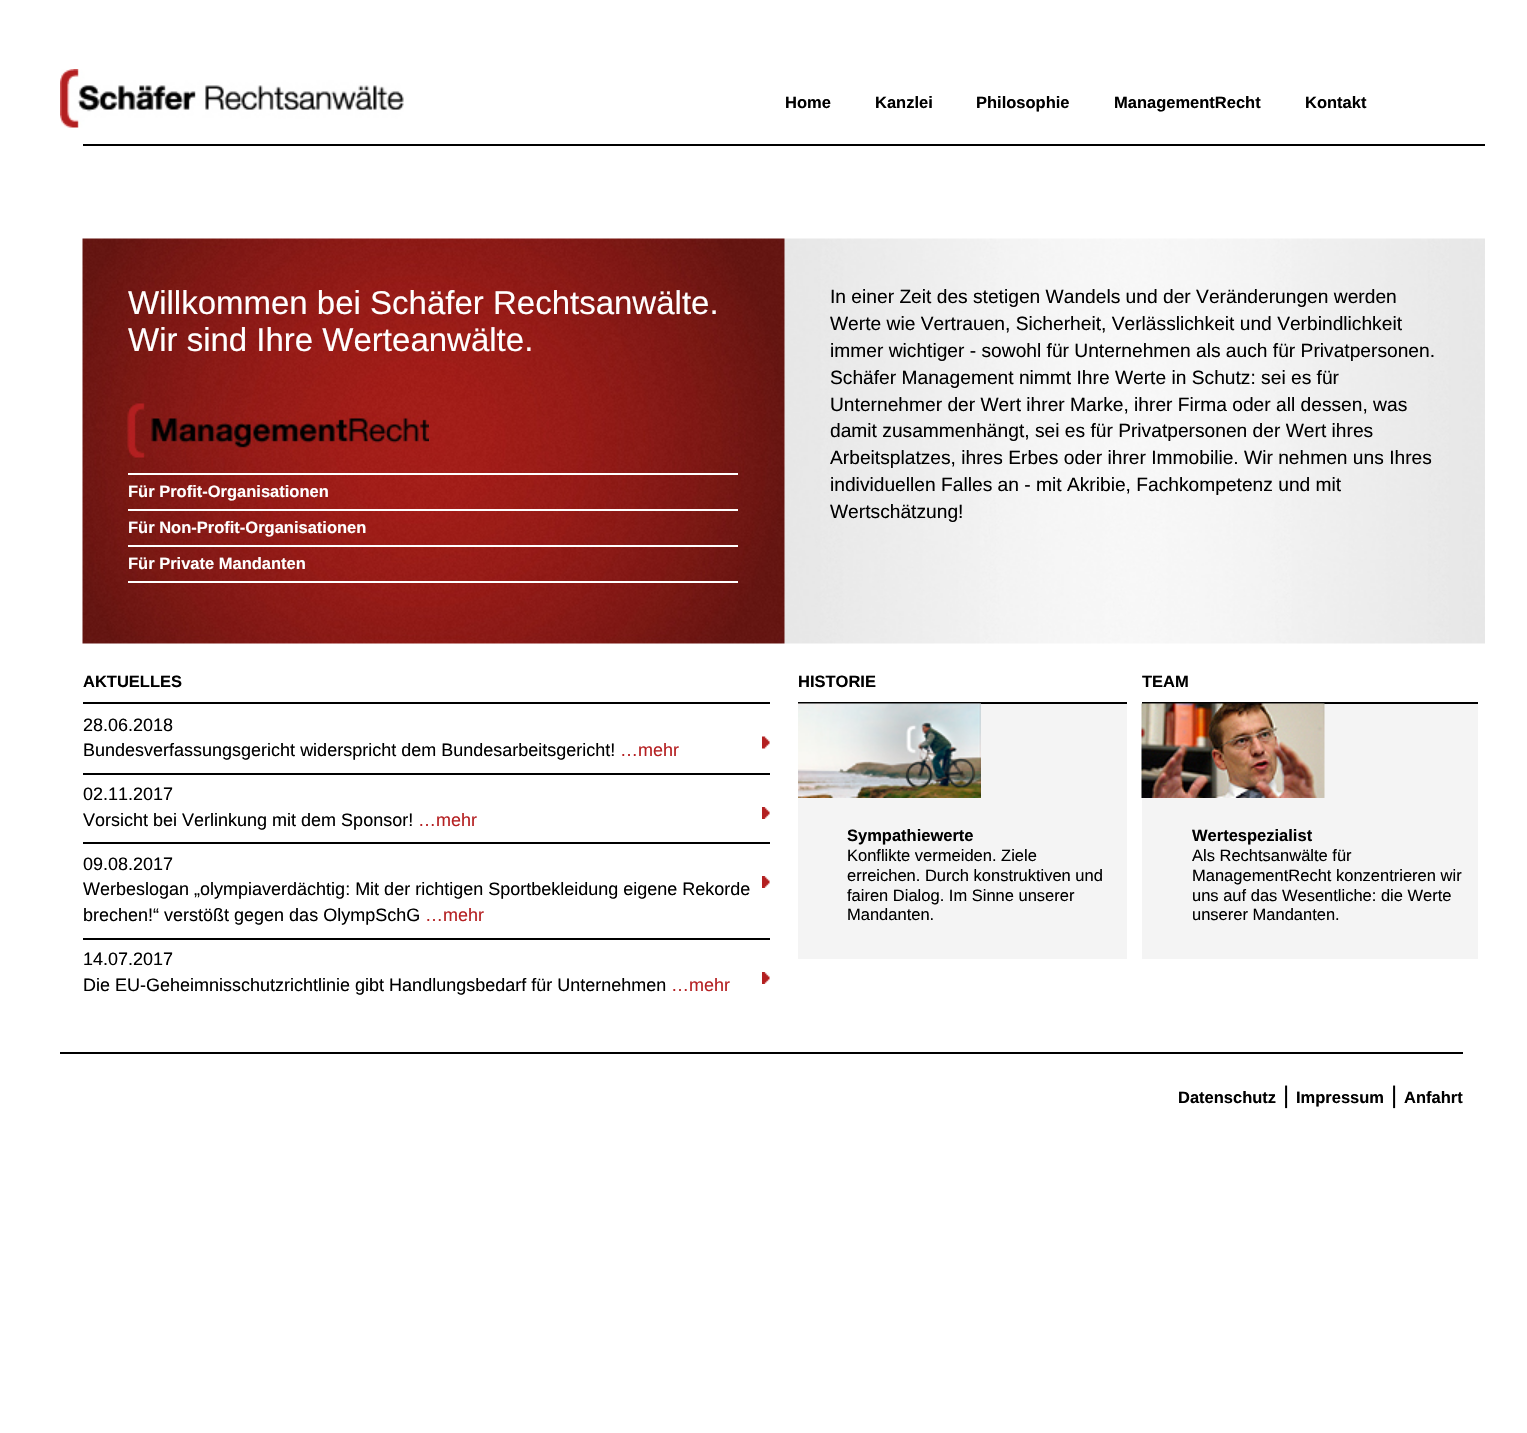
#include "include/core/SkBlurTypes.h"
#include "include/core/SkCanvas.h"
#include "include/core/SkData.h"
#include "include/core/SkFont.h"
#include "include/core/SkFontMgr.h"
#include "include/core/SkImage.h"
#include "include/core/SkMaskFilter.h"
#include "include/core/SkPaint.h"
#include "include/core/SkPathBuilder.h"
#include "include/core/SkTextBlob.h"
#include "include/effects/SkDashPathEffect.h"
#include "include/effects/SkGradientShader.h"
#include "include/utils/SkParsePath.h"

extern sk_sp<SkFontMgr> fontMgr;

void draw(SkCanvas* canvas) {
    SkPaint p;
    p.setAntiAlias(true);
    auto font = [&](const char* family, int weight, float size, bool italic = false) {
        SkFontStyle style(weight, SkFontStyle::kNormal_Width,
            italic ? SkFontStyle::kItalic_Slant : SkFontStyle::kUpright_Slant);
        SkFont result(fontMgr->matchFamilyStyle(family, style), size);
        result.setSubpixel(true);
        return result;
    };
    auto drawPhoto = [&](const char* path, float l, float t, float r, float b) {
        auto image = SkImages::DeferredFromEncodedData(SkData::MakeFromFileName(path));
        canvas->drawImageRect(image, SkRect::MakeLTRB(l, t, r, b), SkSamplingOptions());
    };
    canvas->clear(0xFFFFFFFF);
    drawPhoto("media/1.png", 60, 69, 404, 128);
    auto font1 = font("Liberation Sans", 700, 16.5f);
    p.setColor(0xFF000000);
    {
        const struct { const char* s; float x, y; } items[] = {
            {"Home", 785, 108},
            {"Kanzlei", 875, 108},
            {"Philosophie", 976, 108},
            {"ManagementRecht", 1114, 108},
            {"Kontakt", 1305, 108},
        };
        for (auto [s, x, y] : items) {
            canvas->drawString(s, x, y, font1, p);
        }
    }
    canvas->drawRect(SkRect::MakeLTRB(83, 144, 1485, 146), p);
    drawPhoto("media/2.png", 82, 238, 1485, 644);
    auto font2 = font("Liberation Sans", 400, 33);
    p.setColor(0xFFFFFFFF);
    canvas->drawString("Willkommen bei Schäfer Rechtsanwälte.", 128, 314, font2, p);
    canvas->drawString("Wir sind Ihre Werteanwälte.", 128, 351, font2, p);
    drawPhoto("media/3.png", 127, 403, 429, 458);
    canvas->drawRect(SkRect::MakeLTRB(128, 473, 738, 475), p);
    canvas->drawRect(SkRect::MakeLTRB(128, 509, 738, 511), p);
    canvas->drawString("Für Profit-Organisationen", 128, 497, font1, p);
    canvas->drawRect(SkRect::MakeLTRB(128, 545, 738, 547), p);
    canvas->drawString("Für Non-Profit-Organisationen", 128, 533, font1, p);
    canvas->drawRect(SkRect::MakeLTRB(128, 581, 738, 583), p);
    canvas->drawString("Für Private Mandanten", 128, 569, font1, p);
    auto font3 = font("Liberation Sans", 400, 19.2f);
    p.setColor(0xFF000000);
    {
        const struct { const char* s; float x, y; } items[] = {
            {"In einer Zeit des stetigen Wandels und der Veränderungen werden", 830, 303},
            {"Werte wie Vertrauen, Sicherheit, Verlässlichkeit und Verbindlichkeit", 830, 330},
            {"immer wichtiger - sowohl für Unternehmen als auch für Privatpersonen.", 830, 357},
            {"Schäfer Management nimmt Ihre Werte in Schutz: sei es für", 830, 384},
            {"Unternehmer der Wert ihrer Marke, ihrer Firma oder all dessen, was", 830, 411},
            {"damit zusammenhängt, sei es für Privatpersonen der Wert ihres", 830, 437},
            {"Arbeitsplatzes, ihres Erbes oder ihrer Immobilie. Wir nehmen uns Ihres", 830, 464},
            {"individuellen Falles an - mit Akribie, Fachkompetenz und mit", 830, 491},
            {"Wertschätzung!", 830, 518},
        };
        for (auto [s, x, y] : items) {
            canvas->drawString(s, x, y, font3, p);
        }
    }
    canvas->drawString("AKTUELLES", 83, 687, font1, p);
    drawPhoto("media/4.png", 762, 736, 770, 749);
    canvas->drawRect(SkRect::MakeLTRB(83, 702, 770, 704), p);
    auto font4 = font("Liberation Sans", 400, 18);
    canvas->drawString("28.06.2018", 83, 731, font4, p);
    canvas->drawString("Bundesverfassungsgericht widerspricht dem Bundesarbeitsgericht!", 83, 756, font4, p);
    p.setColor(0xFFB52022);
    canvas->drawString("…mehr", 620, 756, font4, p);
    drawPhoto("media/5.png", 762, 807, 770, 819);
    p.setColor(0xFF000000);
    canvas->drawRect(SkRect::MakeLTRB(83, 773, 770, 775), p);
    canvas->drawString("02.11.2017", 83, 800, font4, p);
    canvas->drawString("Vorsicht bei Verlinkung mit dem Sponsor!", 83, 826, font4, p);
    p.setColor(0xFFB52022);
    canvas->drawString("…mehr", 418, 826, font4, p);
    drawPhoto("media/5.png", 762, 876, 770, 888);
    p.setColor(0xFF000000);
    canvas->drawRect(SkRect::MakeLTRB(83, 842, 770, 844), p);
    {
        const struct { const char* s; float x, y; } items[] = {
            {"09.08.2017", 83, 870},
            {"Werbeslogan „olympiaverdächtig: Mit der richtigen Sportbekleidung eigene Rekorde", 83, 895},
            {"brechen!“ verstößt gegen das OlympSchG", 83, 921},
        };
        for (auto [s, x, y] : items) {
            canvas->drawString(s, x, y, font4, p);
        }
    }
    p.setColor(0xFFB52022);
    canvas->drawString("…mehr", 425, 921, font4, p);
    drawPhoto("media/5.png", 762, 972, 770, 984);
    p.setColor(0xFF000000);
    canvas->drawRect(SkRect::MakeLTRB(83, 938, 770, 940), p);
    canvas->drawString("14.07.2017", 83, 965, font4, p);
    canvas->drawString("Die EU-Geheimnisschutzrichtlinie gibt Handlungsbedarf für Unternehmen", 83, 991, font4, p);
    p.setColor(0xFFB52022);
    canvas->drawString("…mehr", 671, 991, font4, p);
    p.setColor(0xFF000000);
    canvas->drawString("HISTORIE", 798, 687, font1, p);
    p.setColor(0xFFF4F4F4);
    canvas->drawRect(SkRect::MakeLTRB(798, 704, 1127, 959), p);
    p.setColor(0xFF000000);
    canvas->drawRect(SkRect::MakeLTRB(798, 702, 1127, 704), p);
    drawPhoto("media/6.png", 798, 703, 981, 798);
    canvas->drawString("Sympathiewerte", 847, 841, font1, p);
    auto font5 = font("Liberation Sans", 400, 16.5f);
    {
        const struct { const char* s; float x, y; } items[] = {
            {"Konflikte vermeiden. Ziele", 847, 861},
            {"erreichen. Durch konstruktiven und", 847, 881},
            {"fairen Dialog. Im Sinne unserer", 847, 901},
            {"Mandanten.", 847, 920},
        };
        for (auto [s, x, y] : items) {
            canvas->drawString(s, x, y, font5, p);
        }
    }
    canvas->drawString("TEAM", 1142, 687, font1, p);
    p.setColor(0xFFF4F4F4);
    canvas->drawRect(SkRect::MakeLTRB(1142, 704, 1478, 959), p);
    p.setColor(0xFF000000);
    canvas->drawRect(SkRect::MakeLTRB(1142, 702, 1478, 704), p);
    drawPhoto("media/7.png", 1141, 703, 1325, 798);
    canvas->drawString("Wertespezialist", 1192, 841, font1, p);
    {
        const struct { const char* s; float x, y; } items[] = {
            {"Als Rechtsanwälte für", 1192, 861},
            {"ManagementRecht konzentrieren wir", 1192, 881},
            {"uns auf das Wesentliche: die Werte", 1192, 901},
            {"unserer Mandanten.", 1192, 920},
        };
        for (auto [s, x, y] : items) {
            canvas->drawString(s, x, y, font5, p);
        }
    }
    canvas->drawRect(SkRect::MakeLTRB(60, 1052, 1463, 1054), p);
    canvas->drawString("Datenschutz", 1178, 1103, font1, p);
    auto font6 = font("Liberation Sans", 400, 24);
    canvas->drawString("|", 1283, 1103, font6, p);
    canvas->drawString("Impressum", 1296, 1103, font1, p);
    canvas->drawString("|", 1391, 1103, font6, p);
    canvas->drawString("Anfahrt", 1404, 1103, font1, p);
}
